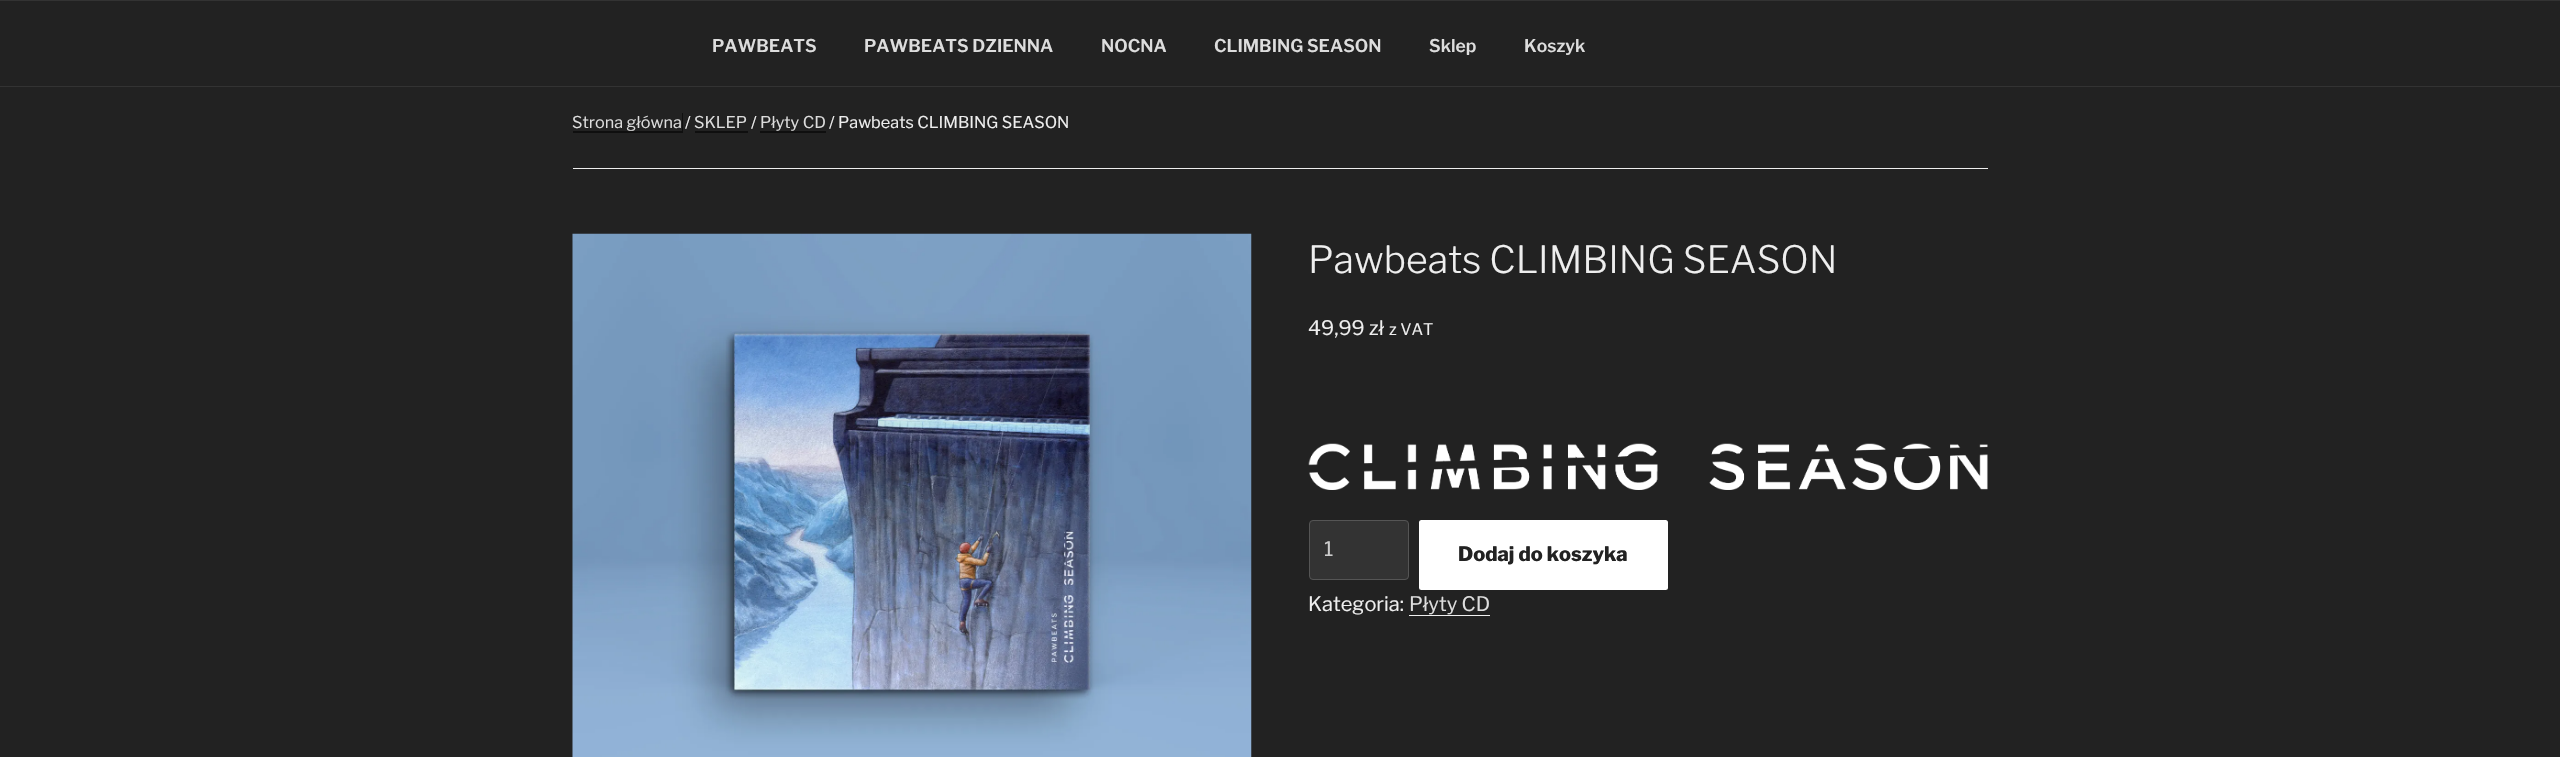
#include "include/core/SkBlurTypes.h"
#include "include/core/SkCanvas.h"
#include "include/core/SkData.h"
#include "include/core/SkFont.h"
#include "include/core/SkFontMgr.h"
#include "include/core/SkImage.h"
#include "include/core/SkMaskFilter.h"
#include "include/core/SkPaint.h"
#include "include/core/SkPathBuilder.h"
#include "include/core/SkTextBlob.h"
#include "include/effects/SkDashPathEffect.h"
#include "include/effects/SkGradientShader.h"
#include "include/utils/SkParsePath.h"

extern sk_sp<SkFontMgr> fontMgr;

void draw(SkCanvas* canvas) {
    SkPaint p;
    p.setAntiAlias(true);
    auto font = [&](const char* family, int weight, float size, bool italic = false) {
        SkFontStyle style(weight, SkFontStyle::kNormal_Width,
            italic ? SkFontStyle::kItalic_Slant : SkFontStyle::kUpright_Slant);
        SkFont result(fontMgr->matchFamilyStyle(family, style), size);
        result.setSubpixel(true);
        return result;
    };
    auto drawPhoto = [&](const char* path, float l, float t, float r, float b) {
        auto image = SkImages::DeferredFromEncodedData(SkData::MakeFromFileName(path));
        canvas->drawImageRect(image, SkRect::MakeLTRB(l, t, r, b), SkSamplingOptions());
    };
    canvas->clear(0xFF222222);
    p.setColor(0xFF333333);
    canvas->drawRect(SkRect::MakeLTRB(0, 0, 2560, 1), p);
    canvas->drawRect(SkRect::MakeLTRB(0, 86, 2560, 87), p);
    auto font1 = font("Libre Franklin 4", 100, 17.5f);
    p.setColor(0xFFDDDDDD);
    {
        const struct { const char* s; float x, y; } items[] = {
            {"PAWBEATS", 712, 52},
            {"PAWBEATS DZIENNA", 864, 52},
            {"NOCNA", 1101, 52},
            {"CLIMBING SEASON", 1214, 52},
            {"Sklep", 1429, 52},
            {"Koszyk", 1524, 52},
        };
        for (auto [s, x, y] : items) {
            canvas->drawString(s, x, y, font1, p);
        }
    }
    p.setColor(0xFFEEEEEE);
    canvas->drawRect(SkRect::MakeLTRB(573, 168, 1988, 169), p);
    p.setColor(0xFF0F0F0F);
    canvas->drawPath(SkPathBuilder().moveTo(573, 131).lineTo(573, 133).lineTo(683, 133).lineTo(683, 113).lineTo(682, 113).lineTo(682, 131).close().detach(), p);
    auto font2 = font("Libre Franklin", 100, 16.25f);
    p.setColor(0xFFDDDDDD);
    canvas->drawString("Strona główna", 572, 128, font2, p);
    p.setColor(0xFFEEEEEE);
    canvas->drawString("/", 685, 128, font2, p);
    p.setColor(0xFFDDDDDD);
    canvas->drawString("SKLEP", 694, 128, font2, p);
    p.setColor(0xFF0F0F0F);
    canvas->drawPath(SkPathBuilder().moveTo(695, 131).lineTo(695, 133).lineTo(748, 133).lineTo(748, 113).lineTo(748, 131).close().detach(), p);
    p.setColor(0xFFEEEEEE);
    canvas->drawString("/", 751, 128, font2, p);
    p.setColor(0xFFDDDDDD);
    canvas->drawString("Płyty CD", 760, 128, font2, p);
    p.setColor(0xFF0F0F0F);
    canvas->drawRect(SkRect::MakeLTRB(760, 131, 826, 133), p);
    p.setColor(0xFFEEEEEE);
    canvas->drawString("/ Pawbeats CLIMBING SEASON", 829, 128, font2, p);
    drawPhoto("media/1.png", 572, 233, 1252, 757);
    auto font3 = font("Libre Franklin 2", 100, 37.5f);
    canvas->drawString("Pawbeats CLIMBING SEASON", 1308, 273, font3, p);
    auto font4 = font("Libre Franklin", 100, 20);
    canvas->drawString("49,99 zł", 1308, 335, font4, p);
    auto font5 = font("Libre Franklin", 100, 16);
    canvas->drawString("z VAT", 1389, 335, font5, p);
    drawPhoto("media/2.png", 1308, 443, 1988, 490);
    p.setColor(0xFF333333);
    canvas->drawRoundRect(SkRect::MakeLTRB(1309.5f, 520.5f, 1408.5f, 579.5f), 3.5f, 3.5f, p);
    p.setStyle(SkPaint::kStroke_Style);
    p.setStrokeWidth(1);
    p.setColor(0xFF555555);
    canvas->drawRoundRect(SkRect::MakeLTRB(1309.5f, 520.5f, 1408.5f, 579.5f), 3.5f, 3.5f, p);
    p.setStyle(SkPaint::kFill_Style);
    p.setColor(0xFFCCCCCC);
    canvas->drawString("1", 1324, 556, font4, p);
    p.setColor(0xFFFFFFFF);
    canvas->drawRoundRect(SkRect::MakeLTRB(1419, 520, 1668, 590), 2.5f, 2.5f, p);
    auto font6 = font("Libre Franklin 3", 100, 20);
    p.setColor(0xFF222222);
    canvas->drawString("Dodaj do koszyka", 1458, 561, font6, p);
    p.setColor(0xFFEEEEEE);
    canvas->drawString("Kategoria:", 1308, 611, font4, p);
    p.setColor(0xFFDDDDDD);
    canvas->drawString("Płyty CD", 1409, 611, font4, p);
    p.setColor(0xFFF0F0F0);
    canvas->drawRect(SkRect::MakeLTRB(1409, 615, 1490, 616), p);
}
